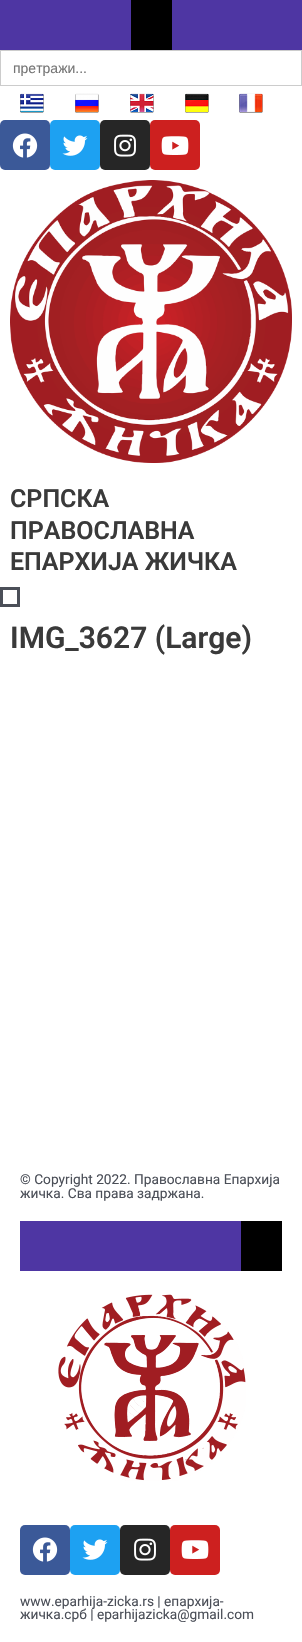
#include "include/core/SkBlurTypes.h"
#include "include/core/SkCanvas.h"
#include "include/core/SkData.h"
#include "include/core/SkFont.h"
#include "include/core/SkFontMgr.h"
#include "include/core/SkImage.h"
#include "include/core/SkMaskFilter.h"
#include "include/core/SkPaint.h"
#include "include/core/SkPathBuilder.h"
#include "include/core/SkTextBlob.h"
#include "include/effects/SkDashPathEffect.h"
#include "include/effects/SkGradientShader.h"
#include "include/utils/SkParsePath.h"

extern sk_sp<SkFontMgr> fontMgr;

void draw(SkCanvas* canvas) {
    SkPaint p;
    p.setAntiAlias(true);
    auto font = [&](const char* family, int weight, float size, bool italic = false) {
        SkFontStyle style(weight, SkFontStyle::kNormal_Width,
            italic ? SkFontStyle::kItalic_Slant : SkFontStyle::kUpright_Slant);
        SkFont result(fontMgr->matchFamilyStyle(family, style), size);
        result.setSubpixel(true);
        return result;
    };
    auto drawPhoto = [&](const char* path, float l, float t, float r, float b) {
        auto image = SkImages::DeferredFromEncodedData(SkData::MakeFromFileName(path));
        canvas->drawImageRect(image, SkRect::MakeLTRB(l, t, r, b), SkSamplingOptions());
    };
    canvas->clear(0xFFFFFFFF);
    p.setColor(0xFF4E36A3);
    canvas->drawRect(SkRect::MakeLTRB(0, 0, 302, 50), p);
    p.setColor(0xFF000000);
    canvas->drawRect(SkRect::MakeLTRB(131, 0, 172, 50), p);
    p.setStyle(SkPaint::kStroke_Style);
    p.setStrokeWidth(1);
    p.setColor(0xFFCCCCCC);
    canvas->drawRect(SkRect::MakeLTRB(0.5f, 50.5f, 301.5f, 85.5f), p);
    auto font1 = font("Liberation Sans", 400, 14);
    p.setStyle(SkPaint::kFill_Style);
    p.setColor(0xFF757575);
    canvas->drawString("претражи...", 13, 73, font1, p);
    drawPhoto("media/1.png", 20, 93, 44, 113);
    drawPhoto("media/2.png", 75, 93, 99, 113);
    drawPhoto("media/3.png", 130, 93, 154, 113);
    drawPhoto("media/4.png", 185, 93, 209, 113);
    drawPhoto("media/5.png", 239, 93, 263, 113);
    p.setColor(0xFF3B5998);
    canvas->drawRoundRect(SkRect::MakeLTRB(0, 120, 50, 170), 5, 5, p);
    drawPhoto("media/6.png", 12, 133, 38, 158);
    p.setColor(0xFF1DA1F2);
    canvas->drawRoundRect(SkRect::MakeLTRB(50, 120, 100, 170), 5, 5, p);
    drawPhoto("media/7.png", 62, 135, 88, 156);
    p.setColor(0xFF262626);
    canvas->drawRoundRect(SkRect::MakeLTRB(100, 120, 150, 170), 5, 5, p);
    drawPhoto("media/8.png", 114, 134, 136, 157);
    p.setColor(0xFFCD201F);
    canvas->drawRoundRect(SkRect::MakeLTRB(150, 120, 200, 170), 5, 5, p);
    drawPhoto("media/9.png", 161, 136, 189, 155);
    drawPhoto("media/10.png", 10, 180, 292, 463);
    auto font2 = font("Roboto", 600, 25);
    p.setColor(0xFF3A3A3A);
    {
        const struct { const char* s; float x, y; } items[] = {
            {"СРПСКА", 10, 507},
            {"ПРАВОСЛАВНА", 10, 539},
            {"ЕПАРХИЈА ЖИЧКА", 10, 570},
        };
        for (auto [s, x, y] : items) {
            canvas->drawString(s, x, y, font2, p);
        }
    }
    p.setStyle(SkPaint::kStroke_Style);
    p.setStrokeWidth(3);
    p.setColor(0xFF4B4F58);
    canvas->drawRect(SkRect::MakeLTRB(1.5f, 588.5f, 18.5f, 605.5f), p);
    auto font3 = font("Roboto", 600, 30);
    p.setStyle(SkPaint::kFill_Style);
    p.setColor(0xFF3A3A3A);
    canvas->drawString("IMG_3627 (Large)", 10, 648, font3, p);
    auto font4 = font("Roboto", 400, 13.7f);
    p.setColor(0xFF4B4F58);
    canvas->drawString("© Copyright 2022. Православна Епархија", 20, 1184, font4, p);
    canvas->drawString("жичка. Сва права задржана.", 20, 1198, font4, p);
    p.setColor(0xFF4E36A3);
    canvas->drawRect(SkRect::MakeLTRB(20, 1221, 241, 1271), p);
    p.setColor(0xFF000000);
    canvas->drawRect(SkRect::MakeLTRB(241, 1221, 282, 1271), p);
    drawPhoto("media/11.png", 58, 1294, 246, 1481);
    p.setColor(0xFF3B5998);
    canvas->drawRoundRect(SkRect::MakeLTRB(20, 1525, 70, 1575), 5, 5, p);
    drawPhoto("media/6.png", 32, 1537, 58, 1562);
    p.setColor(0xFF1DA1F2);
    canvas->drawRoundRect(SkRect::MakeLTRB(70, 1525, 120, 1575), 5, 5, p);
    drawPhoto("media/7.png", 82, 1539, 108, 1560);
    p.setColor(0xFF262626);
    canvas->drawRoundRect(SkRect::MakeLTRB(120, 1525, 170, 1575), 5, 5, p);
    drawPhoto("media/8.png", 134, 1538, 156, 1561);
    p.setColor(0xFFCD201F);
    canvas->drawRoundRect(SkRect::MakeLTRB(170, 1525, 220, 1575), 5, 5, p);
    drawPhoto("media/9.png", 181, 1540, 209, 1559);
    p.setColor(0xFF4B4F58);
    canvas->drawString("www.eparhija-zicka.rs | епархија-", 20, 1606, font4, p);
    canvas->drawString("жичка.срб | eparhijazicka@gmail.com", 20, 1619, font4, p);
}
